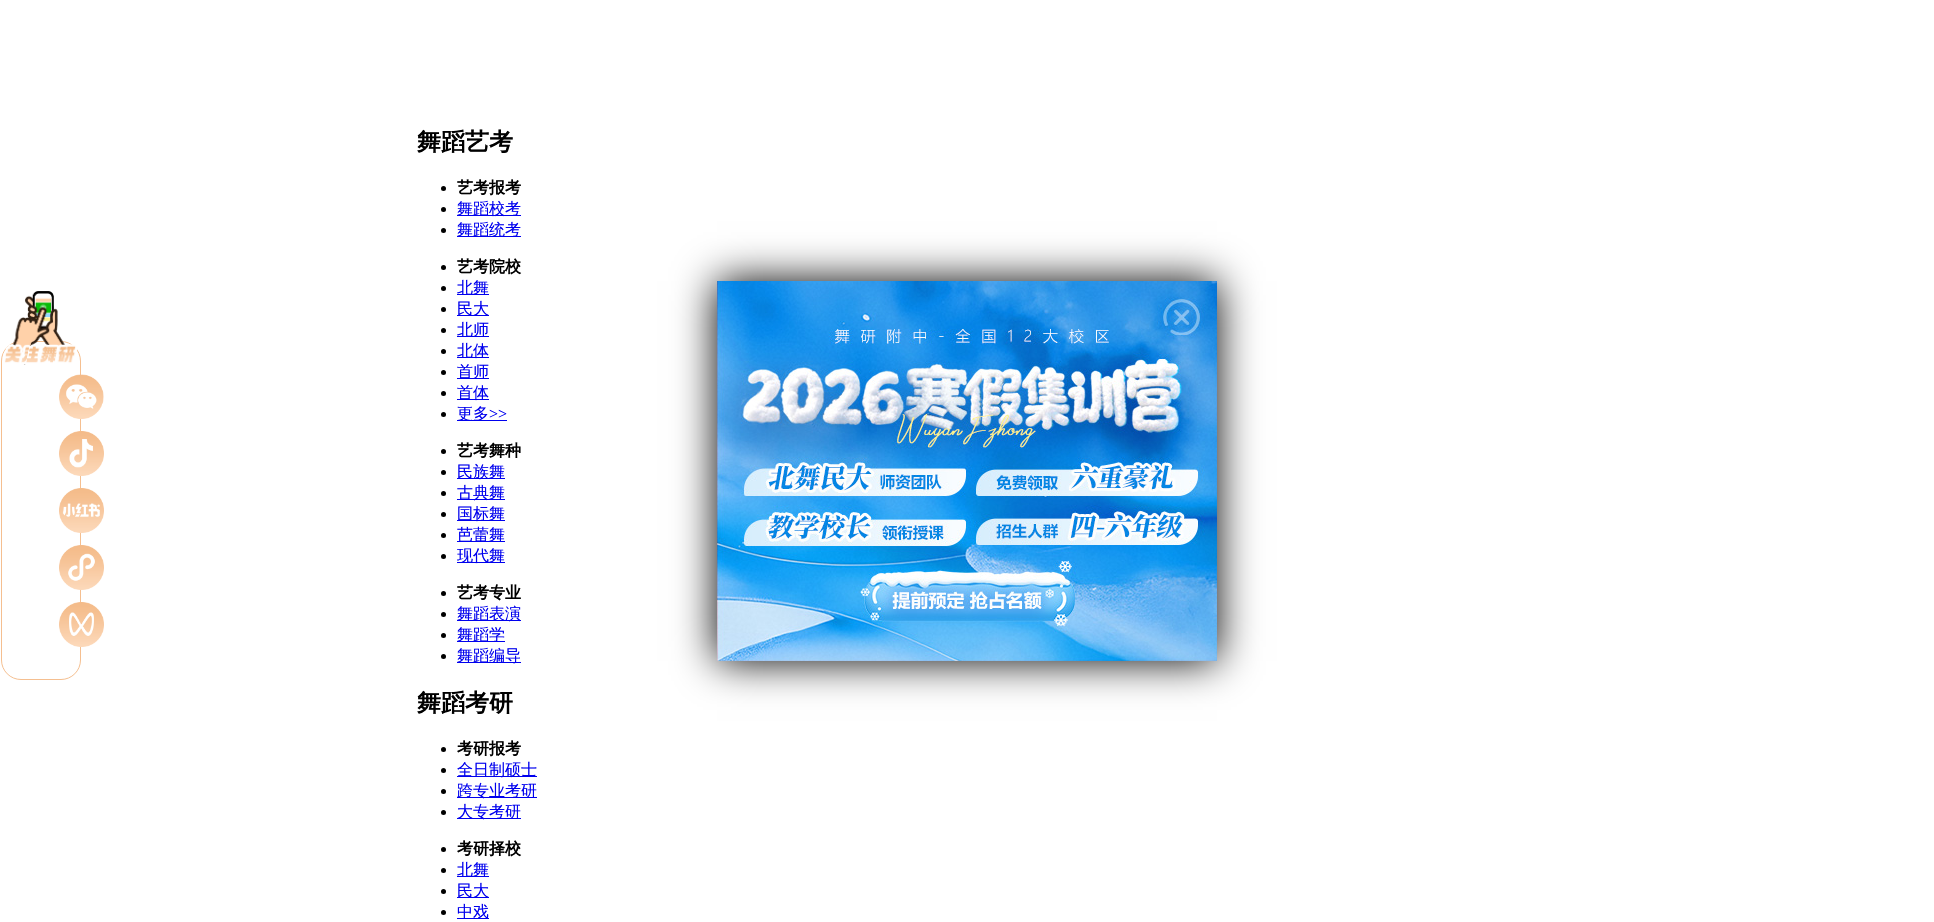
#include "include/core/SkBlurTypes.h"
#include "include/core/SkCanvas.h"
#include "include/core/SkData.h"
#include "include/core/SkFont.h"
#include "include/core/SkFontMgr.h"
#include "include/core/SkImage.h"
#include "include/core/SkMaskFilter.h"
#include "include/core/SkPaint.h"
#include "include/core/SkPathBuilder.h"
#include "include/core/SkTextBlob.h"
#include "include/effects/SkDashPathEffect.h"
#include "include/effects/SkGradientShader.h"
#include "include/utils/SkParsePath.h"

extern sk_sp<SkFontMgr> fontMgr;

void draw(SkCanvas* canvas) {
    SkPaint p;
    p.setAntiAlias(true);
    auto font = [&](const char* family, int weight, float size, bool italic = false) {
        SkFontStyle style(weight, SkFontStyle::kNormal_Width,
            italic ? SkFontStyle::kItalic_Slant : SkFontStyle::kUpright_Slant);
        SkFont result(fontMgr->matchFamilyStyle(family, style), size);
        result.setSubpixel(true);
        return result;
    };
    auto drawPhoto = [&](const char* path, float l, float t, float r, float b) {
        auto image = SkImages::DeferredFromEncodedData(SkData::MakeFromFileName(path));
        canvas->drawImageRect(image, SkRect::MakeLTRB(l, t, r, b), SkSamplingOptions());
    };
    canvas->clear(0xFFFFFFFF);
    p.setStyle(SkPaint::kStroke_Style);
    p.setStrokeWidth(1);
    p.setColor(0xFFF5BF90);
    canvas->drawRoundRect(SkRect::MakeLTRB(1.5f, 341.5f, 80.5f, 679.5f), 19.5f, 19.5f, p);
    drawPhoto("media/1.png", 3, 291, 78, 365);
    drawPhoto("media/2.png", 59, 374, 104, 419);
    drawPhoto("media/3.png", 59, 431, 104, 476);
    drawPhoto("media/4.png", 59, 488, 104, 533);
    drawPhoto("media/5.png", 59, 545, 104, 590);
    drawPhoto("media/6.png", 59, 602, 104, 647);
    auto font1 = font("WenQuanYi Zen Hei", 700, 24);
    p.setStyle(SkPaint::kFill_Style);
    p.setColor(0xFF000000);
    canvas->drawString("舞蹈艺考", 417, 150, font1, p);
    canvas->drawCircle(443.5f, 188.5f, 2.5f, p);
    auto font2 = font("WenQuanYi Zen Hei", 700, 16);
    canvas->drawString("艺考报考", 457, 193, font2, p);
    canvas->drawCircle(443.5f, 209.5f, 2.5f, p);
    p.setColor(0xFF0000EE);
    canvas->drawRect(SkRect::MakeLTRB(457, 215, 521, 216), p);
    auto font3 = font("WenQuanYi Zen Hei", 500, 16);
    canvas->drawString("舞蹈校考", 457, 214, font3, p);
    p.setColor(0xFF000000);
    canvas->drawCircle(443.5f, 230.5f, 2.5f, p);
    p.setColor(0xFF0000EE);
    canvas->drawRect(SkRect::MakeLTRB(457, 236, 521, 237), p);
    canvas->drawString("舞蹈统考", 457, 235, font3, p);
    p.setColor(0xFF000000);
    canvas->drawCircle(443.5f, 267.5f, 2.5f, p);
    canvas->drawString("艺考院校", 457, 272, font2, p);
    canvas->drawCircle(443.5f, 288.5f, 2.5f, p);
    p.setColor(0xFF0000EE);
    canvas->drawRect(SkRect::MakeLTRB(457, 294, 489, 295), p);
    canvas->drawString("北舞", 457, 293, font3, p);
    p.setColor(0xFF000000);
    canvas->drawCircle(443.5f, 309.5f, 2.5f, p);
    p.setColor(0xFF0000EE);
    canvas->drawRect(SkRect::MakeLTRB(457, 315, 489, 316), p);
    canvas->drawString("民大", 457, 314, font3, p);
    p.setColor(0xFF000000);
    canvas->drawCircle(443.5f, 330.5f, 2.5f, p);
    p.setColor(0xFF0000EE);
    canvas->drawRect(SkRect::MakeLTRB(457, 336, 489, 337), p);
    canvas->drawString("北师", 457, 335, font3, p);
    p.setColor(0xFF000000);
    canvas->drawCircle(443.5f, 351.5f, 2.5f, p);
    p.setColor(0xFF0000EE);
    canvas->drawRect(SkRect::MakeLTRB(457, 357, 489, 358), p);
    canvas->drawString("北体", 457, 356, font3, p);
    p.setColor(0xFF000000);
    canvas->drawCircle(443.5f, 372.5f, 2.5f, p);
    p.setColor(0xFF0000EE);
    canvas->drawRect(SkRect::MakeLTRB(457, 378, 489, 379), p);
    canvas->drawString("首师", 457, 377, font3, p);
    p.setColor(0xFF000000);
    canvas->drawCircle(443.5f, 393.5f, 2.5f, p);
    p.setColor(0xFF0000EE);
    canvas->drawRect(SkRect::MakeLTRB(457, 399, 489, 400), p);
    canvas->drawString("首体", 457, 398, font3, p);
    p.setColor(0xFF000000);
    canvas->drawCircle(443.5f, 414.5f, 2.5f, p);
    p.setColor(0xFF0000EE);
    canvas->drawRect(SkRect::MakeLTRB(457, 420, 507, 421), p);
    canvas->drawString("更多", 457, 419, font3, p);
    auto font4 = font("Liberation Serif", 400, 16);
    canvas->drawString(">>", 489, 419, font4, p);
    p.setColor(0xFF000000);
    canvas->drawCircle(443.5f, 451.5f, 2.5f, p);
    canvas->drawString("艺考舞种", 457, 456, font2, p);
    canvas->drawCircle(443.5f, 472.5f, 2.5f, p);
    p.setColor(0xFF0000EE);
    canvas->drawRect(SkRect::MakeLTRB(457, 478, 505, 479), p);
    canvas->drawString("民族舞", 457, 477, font3, p);
    p.setColor(0xFF000000);
    canvas->drawCircle(443.5f, 493.5f, 2.5f, p);
    p.setColor(0xFF0000EE);
    canvas->drawRect(SkRect::MakeLTRB(457, 499, 505, 500), p);
    canvas->drawString("古典舞", 457, 498, font3, p);
    p.setColor(0xFF000000);
    canvas->drawCircle(443.5f, 514.5f, 2.5f, p);
    p.setColor(0xFF0000EE);
    canvas->drawRect(SkRect::MakeLTRB(457, 520, 505, 521), p);
    canvas->drawString("国标舞", 457, 519, font3, p);
    p.setColor(0xFF000000);
    canvas->drawCircle(443.5f, 535.5f, 2.5f, p);
    p.setColor(0xFF0000EE);
    canvas->drawRect(SkRect::MakeLTRB(457, 541, 505, 542), p);
    canvas->drawString("芭蕾舞", 457, 540, font3, p);
    p.setColor(0xFF000000);
    canvas->drawCircle(443.5f, 556.5f, 2.5f, p);
    p.setColor(0xFF0000EE);
    canvas->drawRect(SkRect::MakeLTRB(457, 562, 505, 563), p);
    canvas->drawString("现代舞", 457, 561, font3, p);
    p.setColor(0xFF000000);
    canvas->drawCircle(443.5f, 593.5f, 2.5f, p);
    canvas->drawString("艺考专业", 457, 598, font2, p);
    canvas->drawCircle(443.5f, 614.5f, 2.5f, p);
    p.setColor(0xFF0000EE);
    canvas->drawRect(SkRect::MakeLTRB(457, 620, 521, 621), p);
    canvas->drawString("舞蹈表演", 457, 619, font3, p);
    p.setColor(0xFF000000);
    canvas->drawCircle(443.5f, 635.5f, 2.5f, p);
    p.setColor(0xFF0000EE);
    canvas->drawRect(SkRect::MakeLTRB(457, 641, 505, 642), p);
    canvas->drawString("舞蹈学", 457, 640, font3, p);
    p.setColor(0xFF000000);
    canvas->drawCircle(443.5f, 656.5f, 2.5f, p);
    p.setColor(0xFF0000EE);
    canvas->drawRect(SkRect::MakeLTRB(457, 662, 521, 663), p);
    canvas->drawString("舞蹈编导", 457, 661, font3, p);
    p.setColor(0xFF000000);
    canvas->drawString("舞蹈考研", 417, 711, font1, p);
    canvas->drawCircle(443.5f, 749.5f, 2.5f, p);
    canvas->drawString("考研报考", 457, 754, font2, p);
    canvas->drawCircle(443.5f, 770.5f, 2.5f, p);
    p.setColor(0xFF0000EE);
    canvas->drawRect(SkRect::MakeLTRB(457, 776, 537, 777), p);
    canvas->drawString("全日制硕士", 457, 775, font3, p);
    p.setColor(0xFF000000);
    canvas->drawCircle(443.5f, 791.5f, 2.5f, p);
    p.setColor(0xFF0000EE);
    canvas->drawRect(SkRect::MakeLTRB(457, 797, 537, 798), p);
    canvas->drawString("跨专业考研", 457, 796, font3, p);
    p.setColor(0xFF000000);
    canvas->drawCircle(443.5f, 812.5f, 2.5f, p);
    p.setColor(0xFF0000EE);
    canvas->drawRect(SkRect::MakeLTRB(457, 818, 521, 819), p);
    canvas->drawString("大专考研", 457, 817, font3, p);
    p.setColor(0xFF000000);
    canvas->drawCircle(443.5f, 849.5f, 2.5f, p);
    canvas->drawString("考研择校", 457, 854, font2, p);
    canvas->drawCircle(443.5f, 870.5f, 2.5f, p);
    p.setColor(0xFF0000EE);
    canvas->drawRect(SkRect::MakeLTRB(457, 876, 489, 877), p);
    canvas->drawString("北舞", 457, 875, font3, p);
    p.setColor(0xFF000000);
    canvas->drawCircle(443.5f, 891.5f, 2.5f, p);
    p.setColor(0xFF0000EE);
    canvas->drawRect(SkRect::MakeLTRB(457, 897, 489, 898), p);
    canvas->drawString("民大", 457, 896, font3, p);
    p.setColor(0xFF000000);
    canvas->drawCircle(443.5f, 912.5f, 2.5f, p);
    p.setColor(0xFF0000EE);
    canvas->drawRect(SkRect::MakeLTRB(457, 918, 489, 919), p);
    canvas->drawString("中戏", 457, 917, font3, p);
    p.setColor(0xFF000000);
    p.setMaskFilter(SkMaskFilter::MakeBlur(kNormal_SkBlurStyle, 20));
    canvas->drawRect(SkRect::MakeLTRB(717, 281, 1217, 661), p);
    p.setMaskFilter(nullptr);
    drawPhoto("media/7.png", 717, 281, 1217, 661);
}
